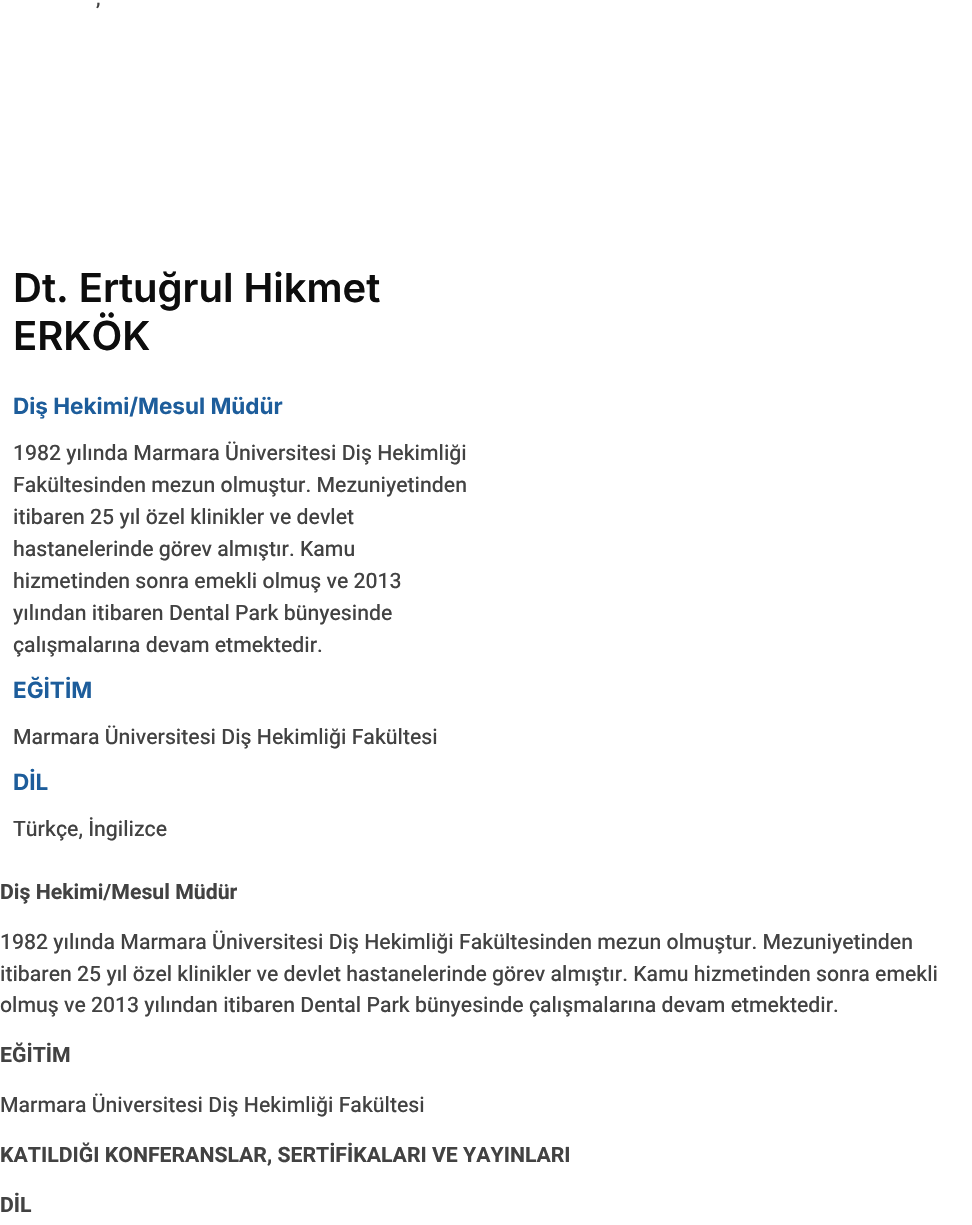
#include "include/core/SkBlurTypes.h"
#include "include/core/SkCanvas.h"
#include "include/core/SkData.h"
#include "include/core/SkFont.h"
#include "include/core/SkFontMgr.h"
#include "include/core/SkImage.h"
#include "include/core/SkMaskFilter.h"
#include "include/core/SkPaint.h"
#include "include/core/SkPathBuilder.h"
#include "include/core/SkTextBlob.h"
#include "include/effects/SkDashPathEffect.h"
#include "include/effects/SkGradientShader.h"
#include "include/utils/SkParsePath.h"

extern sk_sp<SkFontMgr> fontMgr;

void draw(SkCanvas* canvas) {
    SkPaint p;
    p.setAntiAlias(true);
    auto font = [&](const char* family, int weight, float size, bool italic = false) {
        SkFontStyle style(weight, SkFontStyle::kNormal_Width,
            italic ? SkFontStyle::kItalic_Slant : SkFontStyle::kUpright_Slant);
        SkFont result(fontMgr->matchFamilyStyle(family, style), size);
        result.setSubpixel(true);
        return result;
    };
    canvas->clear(0xFFFFFFFF);
    auto font1 = font("Heebo", 500, 21.25f);
    p.setColor(0xFF424242);
    canvas->drawString(",", 96, 5, font1, p);
    auto font2 = font("Inter", 600, 40);
    p.setColor(0xFF0D0D0D);
    canvas->drawString("Dt. Ertuğrul Hikmet", 13, 302, font2, p);
    canvas->drawString("ERKÖK", 13, 350, font2, p);
    auto font3 = font("Inter", 700, 22.5f);
    p.setColor(0xFF1D5D9B);
    canvas->drawString("Diş Hekimi/Mesul Müdür", 13, 414, font3, p);
    p.setColor(0xFF424242);
    {
        const struct { const char* s; float x, y; } items[] = {
            {"1982 yılında Marmara Üniversitesi Diş Hekimliği", 13, 460},
            {"Fakültesinden mezun olmuştur. Mezuniyetinden", 13, 492},
            {"itibaren 25 yıl özel klinikler ve devlet", 13, 524},
            {"hastanelerinde görev almıştır. Kamu", 13, 556},
            {"hizmetinden sonra emekli olmuş ve 2013", 13, 588},
            {"yılından itibaren Dental Park bünyesinde", 13, 620},
            {"çalışmalarına devam etmektedir.", 13, 652},
        };
        for (auto [s, x, y] : items) {
            canvas->drawString(s, x, y, font1, p);
        }
    }
    p.setColor(0xFF1D5D9B);
    canvas->drawString("EĞİTİM", 13, 698, font3, p);
    p.setColor(0xFF424242);
    canvas->drawString("Marmara Üniversitesi Diş Hekimliği Fakültesi", 13, 744, font1, p);
    p.setColor(0xFF1D5D9B);
    canvas->drawString("DİL", 13, 790, font3, p);
    p.setColor(0xFF424242);
    canvas->drawString("Türkçe, İngilizce", 13, 836, font1, p);
    auto font4 = font("Heebo", 700, 21.25f);
    canvas->drawString("Diş Hekimi/Mesul Müdür", 0, 899, font4, p);
    {
        const struct { const char* s; float x, y; } items[] = {
            {"1982 yılında Marmara Üniversitesi Diş Hekimliği Fakültesinden mezun olmuştur. Mezuniyetinden", 0, 949},
            {"itibaren 25 yıl özel klinikler ve devlet hastanelerinde görev almıştır. Kamu hizmetinden sonra emekli", 0, 981},
            {"olmuş ve 2013 yılından itibaren Dental Park bünyesinde çalışmalarına devam etmektedir.", 0, 1012},
        };
        for (auto [s, x, y] : items) {
            canvas->drawString(s, x, y, font1, p);
        }
    }
    canvas->drawString("EĞİTİM", 0, 1062, font4, p);
    canvas->drawString("Marmara Üniversitesi Diş Hekimliği Fakültesi", 0, 1112, font1, p);
    canvas->drawString("KATILDIĞI KONFERANSLAR, SERTİFİKALARI VE YAYINLARI", 0, 1162, font4, p);
    canvas->drawString("DİL", 0, 1212, font4, p);
}
